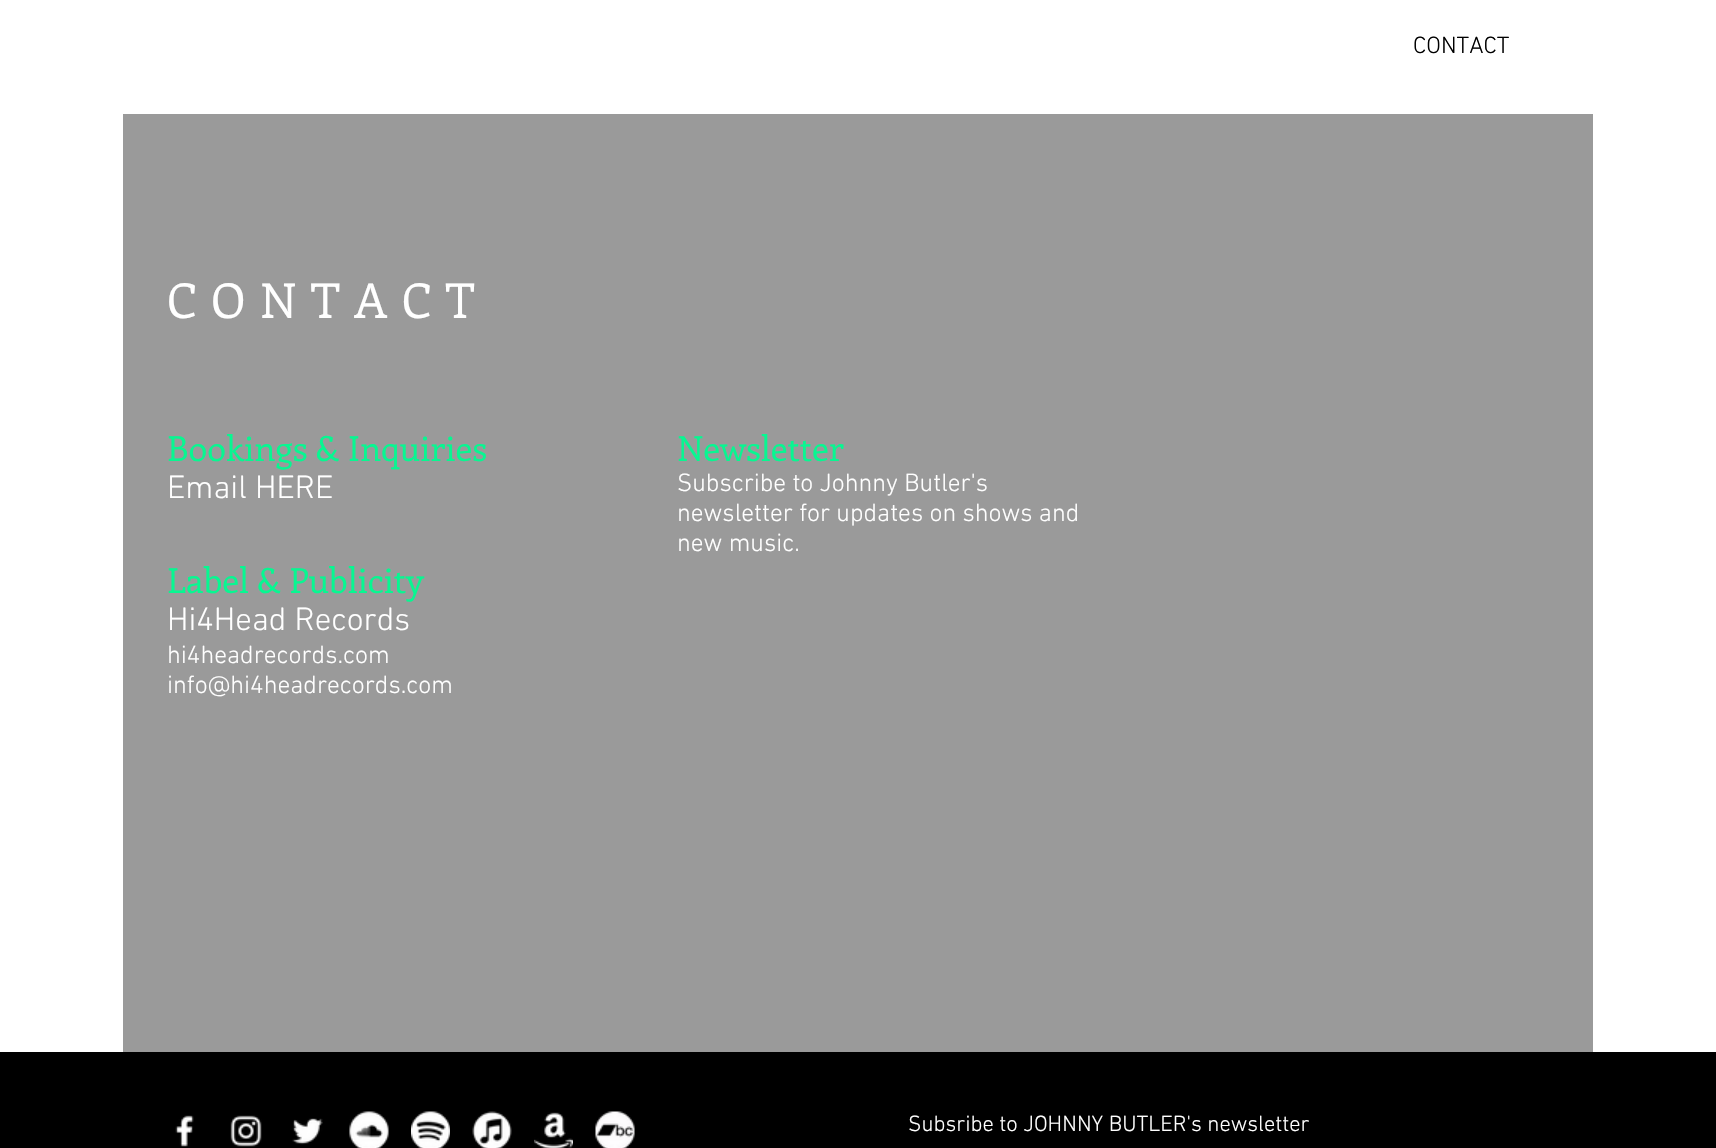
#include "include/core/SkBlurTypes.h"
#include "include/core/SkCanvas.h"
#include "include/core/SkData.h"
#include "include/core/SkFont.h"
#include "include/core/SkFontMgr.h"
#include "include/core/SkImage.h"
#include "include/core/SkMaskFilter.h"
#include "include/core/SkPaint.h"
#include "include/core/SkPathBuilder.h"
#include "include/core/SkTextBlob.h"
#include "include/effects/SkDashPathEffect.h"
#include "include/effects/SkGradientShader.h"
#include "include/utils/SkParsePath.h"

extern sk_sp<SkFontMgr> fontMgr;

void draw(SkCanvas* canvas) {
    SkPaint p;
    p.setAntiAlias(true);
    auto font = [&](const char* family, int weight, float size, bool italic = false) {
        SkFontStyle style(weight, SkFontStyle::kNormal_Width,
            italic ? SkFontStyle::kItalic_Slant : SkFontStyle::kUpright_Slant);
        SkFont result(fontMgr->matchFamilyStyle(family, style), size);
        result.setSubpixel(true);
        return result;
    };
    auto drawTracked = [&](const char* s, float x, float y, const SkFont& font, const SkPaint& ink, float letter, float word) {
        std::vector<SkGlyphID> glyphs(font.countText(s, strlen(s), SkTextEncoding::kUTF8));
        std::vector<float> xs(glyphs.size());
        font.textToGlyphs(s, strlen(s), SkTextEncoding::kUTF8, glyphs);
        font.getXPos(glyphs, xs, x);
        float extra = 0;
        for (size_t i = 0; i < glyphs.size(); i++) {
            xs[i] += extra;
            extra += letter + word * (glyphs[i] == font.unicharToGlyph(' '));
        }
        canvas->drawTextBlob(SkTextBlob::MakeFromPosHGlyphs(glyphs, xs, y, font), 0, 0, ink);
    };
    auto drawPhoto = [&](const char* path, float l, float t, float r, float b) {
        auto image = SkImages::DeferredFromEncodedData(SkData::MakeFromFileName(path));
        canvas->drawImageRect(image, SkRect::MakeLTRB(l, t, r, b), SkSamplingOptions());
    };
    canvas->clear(0xFFFFFFFF);
    auto font1 = font("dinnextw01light", 300, 24);
    p.setColor(0xFF000000);
    canvas->drawString("CONTACT", 1413, 53, font1, p);
    p.setColor(0xFF9A9A9A);
    canvas->drawRect(SkRect::MakeLTRB(123, 114, 1593, 1052), p);
    auto font2 = font("Enriqueta", 400, 48);
    p.setColor(0xFFFFFFFF);
    drawTracked("CONTACT", 167, 318, font2, p, 14.5f, 0);
    auto font3 = font("Enriqueta", 400, 34.5f);
    p.setColor(0xFF07F791);
    canvas->drawString("Bookings & Inquiries", 167, 461, font3, p);
    auto font4 = font("dinnextw01light", 300, 33);
    p.setColor(0xFFFFFFFF);
    canvas->drawString("Email HERE", 167, 498, font4, p);
    p.setColor(0xFF07F791);
    canvas->drawString("Newsletter", 677, 461, font3, p);
    auto font5 = font("dinnextw01light", 300, 25.5f);
    p.setColor(0xFFFFFFFF);
    {
        const struct { const char* s; float x, y; } items[] = {
            {"Subscribe to Johnny Butler's", 677, 491},
            {"newsletter for updates on shows and", 677, 521},
            {"new music.", 677, 551},
        };
        for (auto [s, x, y] : items) {
            canvas->drawString(s, x, y, font5, p);
        }
    }
    p.setColor(0xFF07F791);
    canvas->drawString("Label & Publicity", 167, 593, font3, p);
    p.setColor(0xFFFFFFFF);
    canvas->drawString("Hi4Head Records", 167, 630, font4, p);
    canvas->drawString("hi4headrecords.com", 167, 663, font5, p);
    canvas->drawString("info@hi4headrecords.com", 167, 693, font5, p);
    p.setColor(0xFF000000);
    canvas->drawRect(SkRect::MakeLTRB(0, 1052, 1716, 1148), p);
    drawPhoto("media/1.png", 175, 1115, 194, 1147);
    drawPhoto("media/2.png", 230, 1115, 262, 1147);
    drawPhoto("media/3.png", 292, 1118, 323, 1145);
    drawPhoto("media/4.png", 349, 1111, 389, 1148);
    drawPhoto("media/5.png", 411, 1111, 450, 1148);
    drawPhoto("media/6.png", 472, 1111, 512, 1148);
    drawPhoto("media/7.png", 534, 1112, 573, 1148);
    drawPhoto("media/8.png", 595, 1111, 635, 1148);
    auto font6 = font("dinnextw01light", 300, 22.5f);
    p.setColor(0xFFFFFFFF);
    canvas->drawString("Subsribe to JOHNNY BUTLER's newsletter", 908, 1131, font6, p);
}
